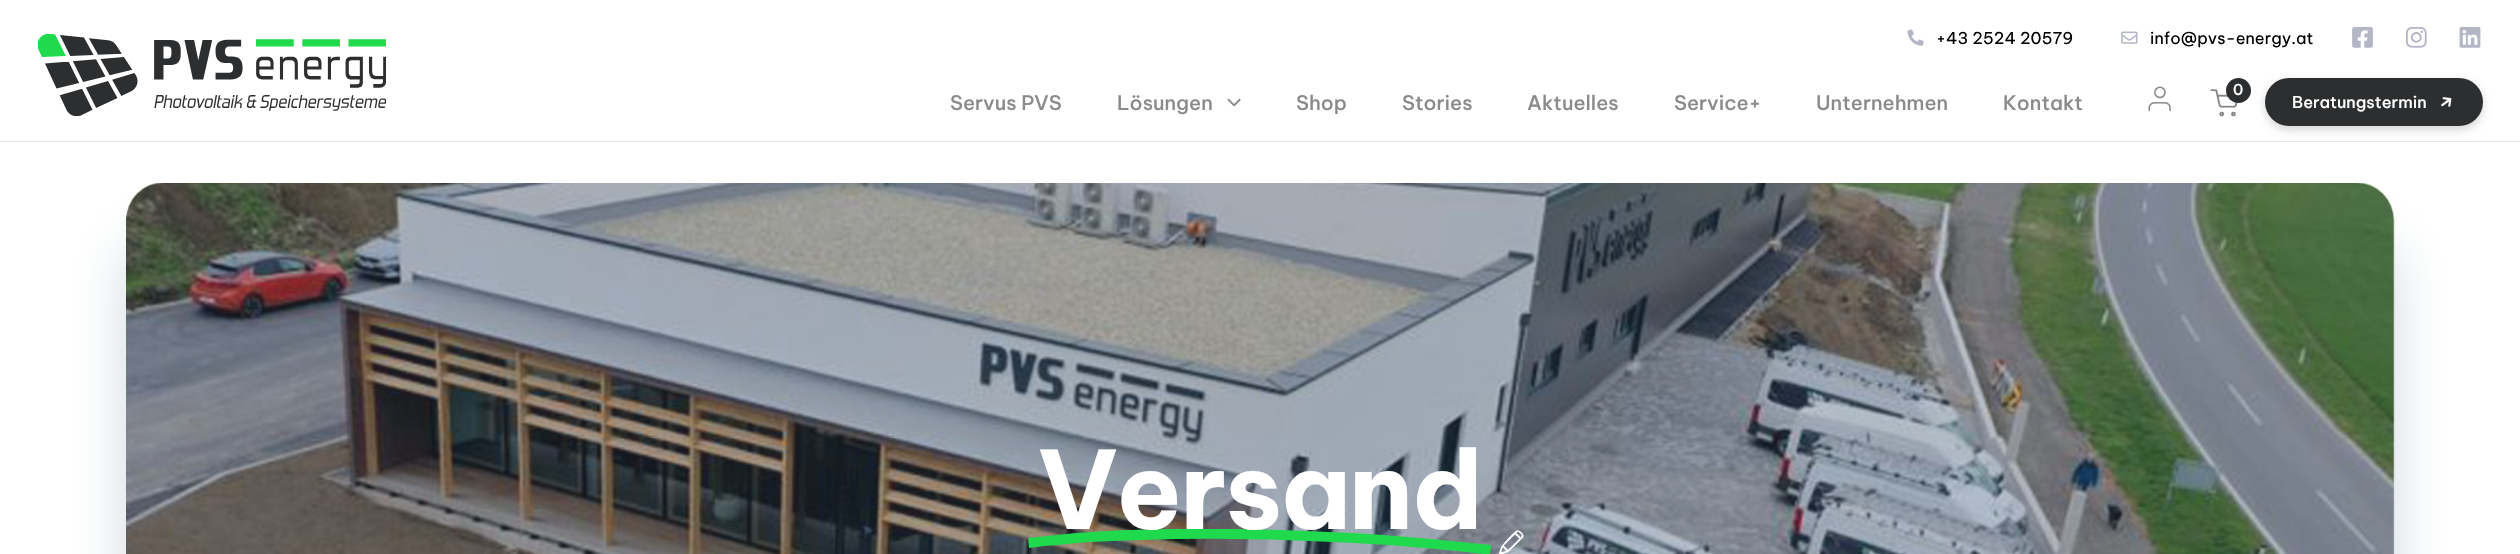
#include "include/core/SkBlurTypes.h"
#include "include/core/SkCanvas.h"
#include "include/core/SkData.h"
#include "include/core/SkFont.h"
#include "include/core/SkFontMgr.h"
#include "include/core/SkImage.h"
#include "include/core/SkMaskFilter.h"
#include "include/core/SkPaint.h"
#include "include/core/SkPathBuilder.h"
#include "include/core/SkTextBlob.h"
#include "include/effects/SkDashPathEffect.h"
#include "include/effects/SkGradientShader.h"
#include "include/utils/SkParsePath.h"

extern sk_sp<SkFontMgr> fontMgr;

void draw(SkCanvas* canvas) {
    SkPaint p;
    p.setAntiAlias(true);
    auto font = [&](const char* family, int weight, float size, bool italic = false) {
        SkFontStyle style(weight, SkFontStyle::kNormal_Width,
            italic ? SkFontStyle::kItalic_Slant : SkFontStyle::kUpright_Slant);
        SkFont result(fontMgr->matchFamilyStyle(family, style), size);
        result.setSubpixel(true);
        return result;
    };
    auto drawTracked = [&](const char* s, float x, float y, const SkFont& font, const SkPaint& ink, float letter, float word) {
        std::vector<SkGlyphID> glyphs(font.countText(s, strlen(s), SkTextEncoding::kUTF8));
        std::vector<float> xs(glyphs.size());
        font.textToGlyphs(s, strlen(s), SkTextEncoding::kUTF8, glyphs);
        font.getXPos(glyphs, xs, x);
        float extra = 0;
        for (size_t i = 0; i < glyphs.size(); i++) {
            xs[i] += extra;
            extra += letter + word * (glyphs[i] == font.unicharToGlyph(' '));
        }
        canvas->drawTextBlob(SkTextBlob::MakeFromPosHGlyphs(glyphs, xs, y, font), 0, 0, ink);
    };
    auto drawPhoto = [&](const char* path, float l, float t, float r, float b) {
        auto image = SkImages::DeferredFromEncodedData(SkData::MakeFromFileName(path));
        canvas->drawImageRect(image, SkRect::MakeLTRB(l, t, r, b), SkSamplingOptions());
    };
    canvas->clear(0xFFFFFFFF);
    p.setColor(0xFFE8E8E8);
    canvas->drawRect(SkRect::MakeLTRB(0, 141, 2520, 142), p);
    drawPhoto("media/1.png", 38, 34, 386, 116);
    drawPhoto("media/2.png", 1907, 29, 1924, 46);
    auto font1 = font("Be Vietnam Pro", 400, 16.25f);
    p.setColor(0xFF000000);
    drawTracked("+43 2524 20579", 1936, 44, font1, p, 0.1f, 0);
    drawPhoto("media/3.png", 2121, 31, 2138, 44);
    drawTracked("info@pvs-energy.at", 2150, 44, font1, p, 0.1f, 0);
    drawPhoto("media/4.png", 2352, 26, 2373, 48);
    drawPhoto("media/5.png", 2405, 26, 2427, 48);
    drawPhoto("media/6.png", 2459, 26, 2481, 48);
    auto font2 = font("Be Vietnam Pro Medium", 500, 20);
    p.setColor(0xFF8A8A8A);
    canvas->drawString("Servus PVS", 950, 110, font2, p);
    canvas->drawString("Lösungen", 1117, 110, font2, p);
    drawPhoto("media/7.png", 1227, 98, 1241, 107);
    {
        const struct { const char* s; float x, y; } items[] = {
            {"Shop", 1296, 110},
            {"Stories", 1402, 110},
            {"Aktuelles", 1527, 110},
            {"Service+", 1674, 110},
            {"Unternehmen", 1816, 110},
            {"Kontakt", 2003, 110},
        };
        for (auto [s, x, y] : items) {
            canvas->drawString(s, x, y, font2, p);
        }
    }
    drawPhoto("media/8.png", 2148, 86, 2171, 112);
    drawPhoto("media/9.png", 2210, 89, 2238, 117);
    p.setColor(0xFF2C2E30);
    canvas->drawCircle(2238.5f, 90.5f, 12.5f, p);
    auto font3 = font("Be Vietnam Pro Medium", 500, 15);
    p.setColor(0xFFFFFFFF);
    canvas->drawString("0", 2233, 95, font3, p);
    p.setColor(0x29000000);
    p.setMaskFilter(SkMaskFilter::MakeBlur(kNormal_SkBlurStyle, 4));
    canvas->drawRoundRect(SkRect::MakeLTRB(2265, 81, 2483, 130), 24.5f, 24.5f, p);
    p.setMaskFilter(nullptr);
    p.setColor(0xFF2C2E30);
    canvas->drawRoundRect(SkRect::MakeLTRB(2265, 78, 2483, 126), 24, 24, p);
    auto font4 = font("Be Vietnam Pro Medium", 500, 16.25f);
    p.setColor(0xFFFFFFFF);
    canvas->drawString("Beratungstermin", 2292, 108, font4, p);
    drawPhoto("media/10.png", 2441, 97, 2452, 107);
    p.setColor(0x38315976);
    p.setMaskFilter(SkMaskFilter::MakeBlur(kNormal_SkBlurStyle, 28));
    canvas->drawRoundRect(SkRect::MakeLTRB(126, 239, 2394, 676), 38, 38, p);
    p.setMaskFilter(nullptr);
    drawPhoto("media/11.png", 126, 183, 2395, 554);
    p.setColor(0x4D3C4B62);
    canvas->drawRoundRect(SkRect::MakeLTRB(126, 183, 2394, 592), 38, 38, p);
    canvas->save();
    canvas->clipRect(SkRect::MakeLTRB(1028, 529, 1493, 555));
    p.setColor(0xFF1FDA4C);
    canvas->drawPath(SkPathBuilder().moveTo(1029, 548).lineTo(1028, 538).lineTo(1076, 533).cubicTo(1160, 527, 1244, 528, 1328, 532).cubicTo(1362, 533, 1396, 536, 1431, 539).lineTo(1491, 545).lineTo(1490, 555).cubicTo(1456, 550, 1423, 548, 1389, 545).cubicTo(1336, 542, 1283, 539, 1230, 539).cubicTo(1183, 538, 1137, 540, 1090, 542).cubicTo(1070, 544, 1049, 545, 1029, 548).close().detach(), p);
    canvas->restore();
    auto font5 = font("Be Vietnam Pro", 700, 107.5f);
    p.setColor(0xFFFFFFFF);
    drawTracked("Versand", 1038, 529, font5, p, -2, 0);
    drawPhoto("media/12.png", 1499, 530, 1524, 554);
}
